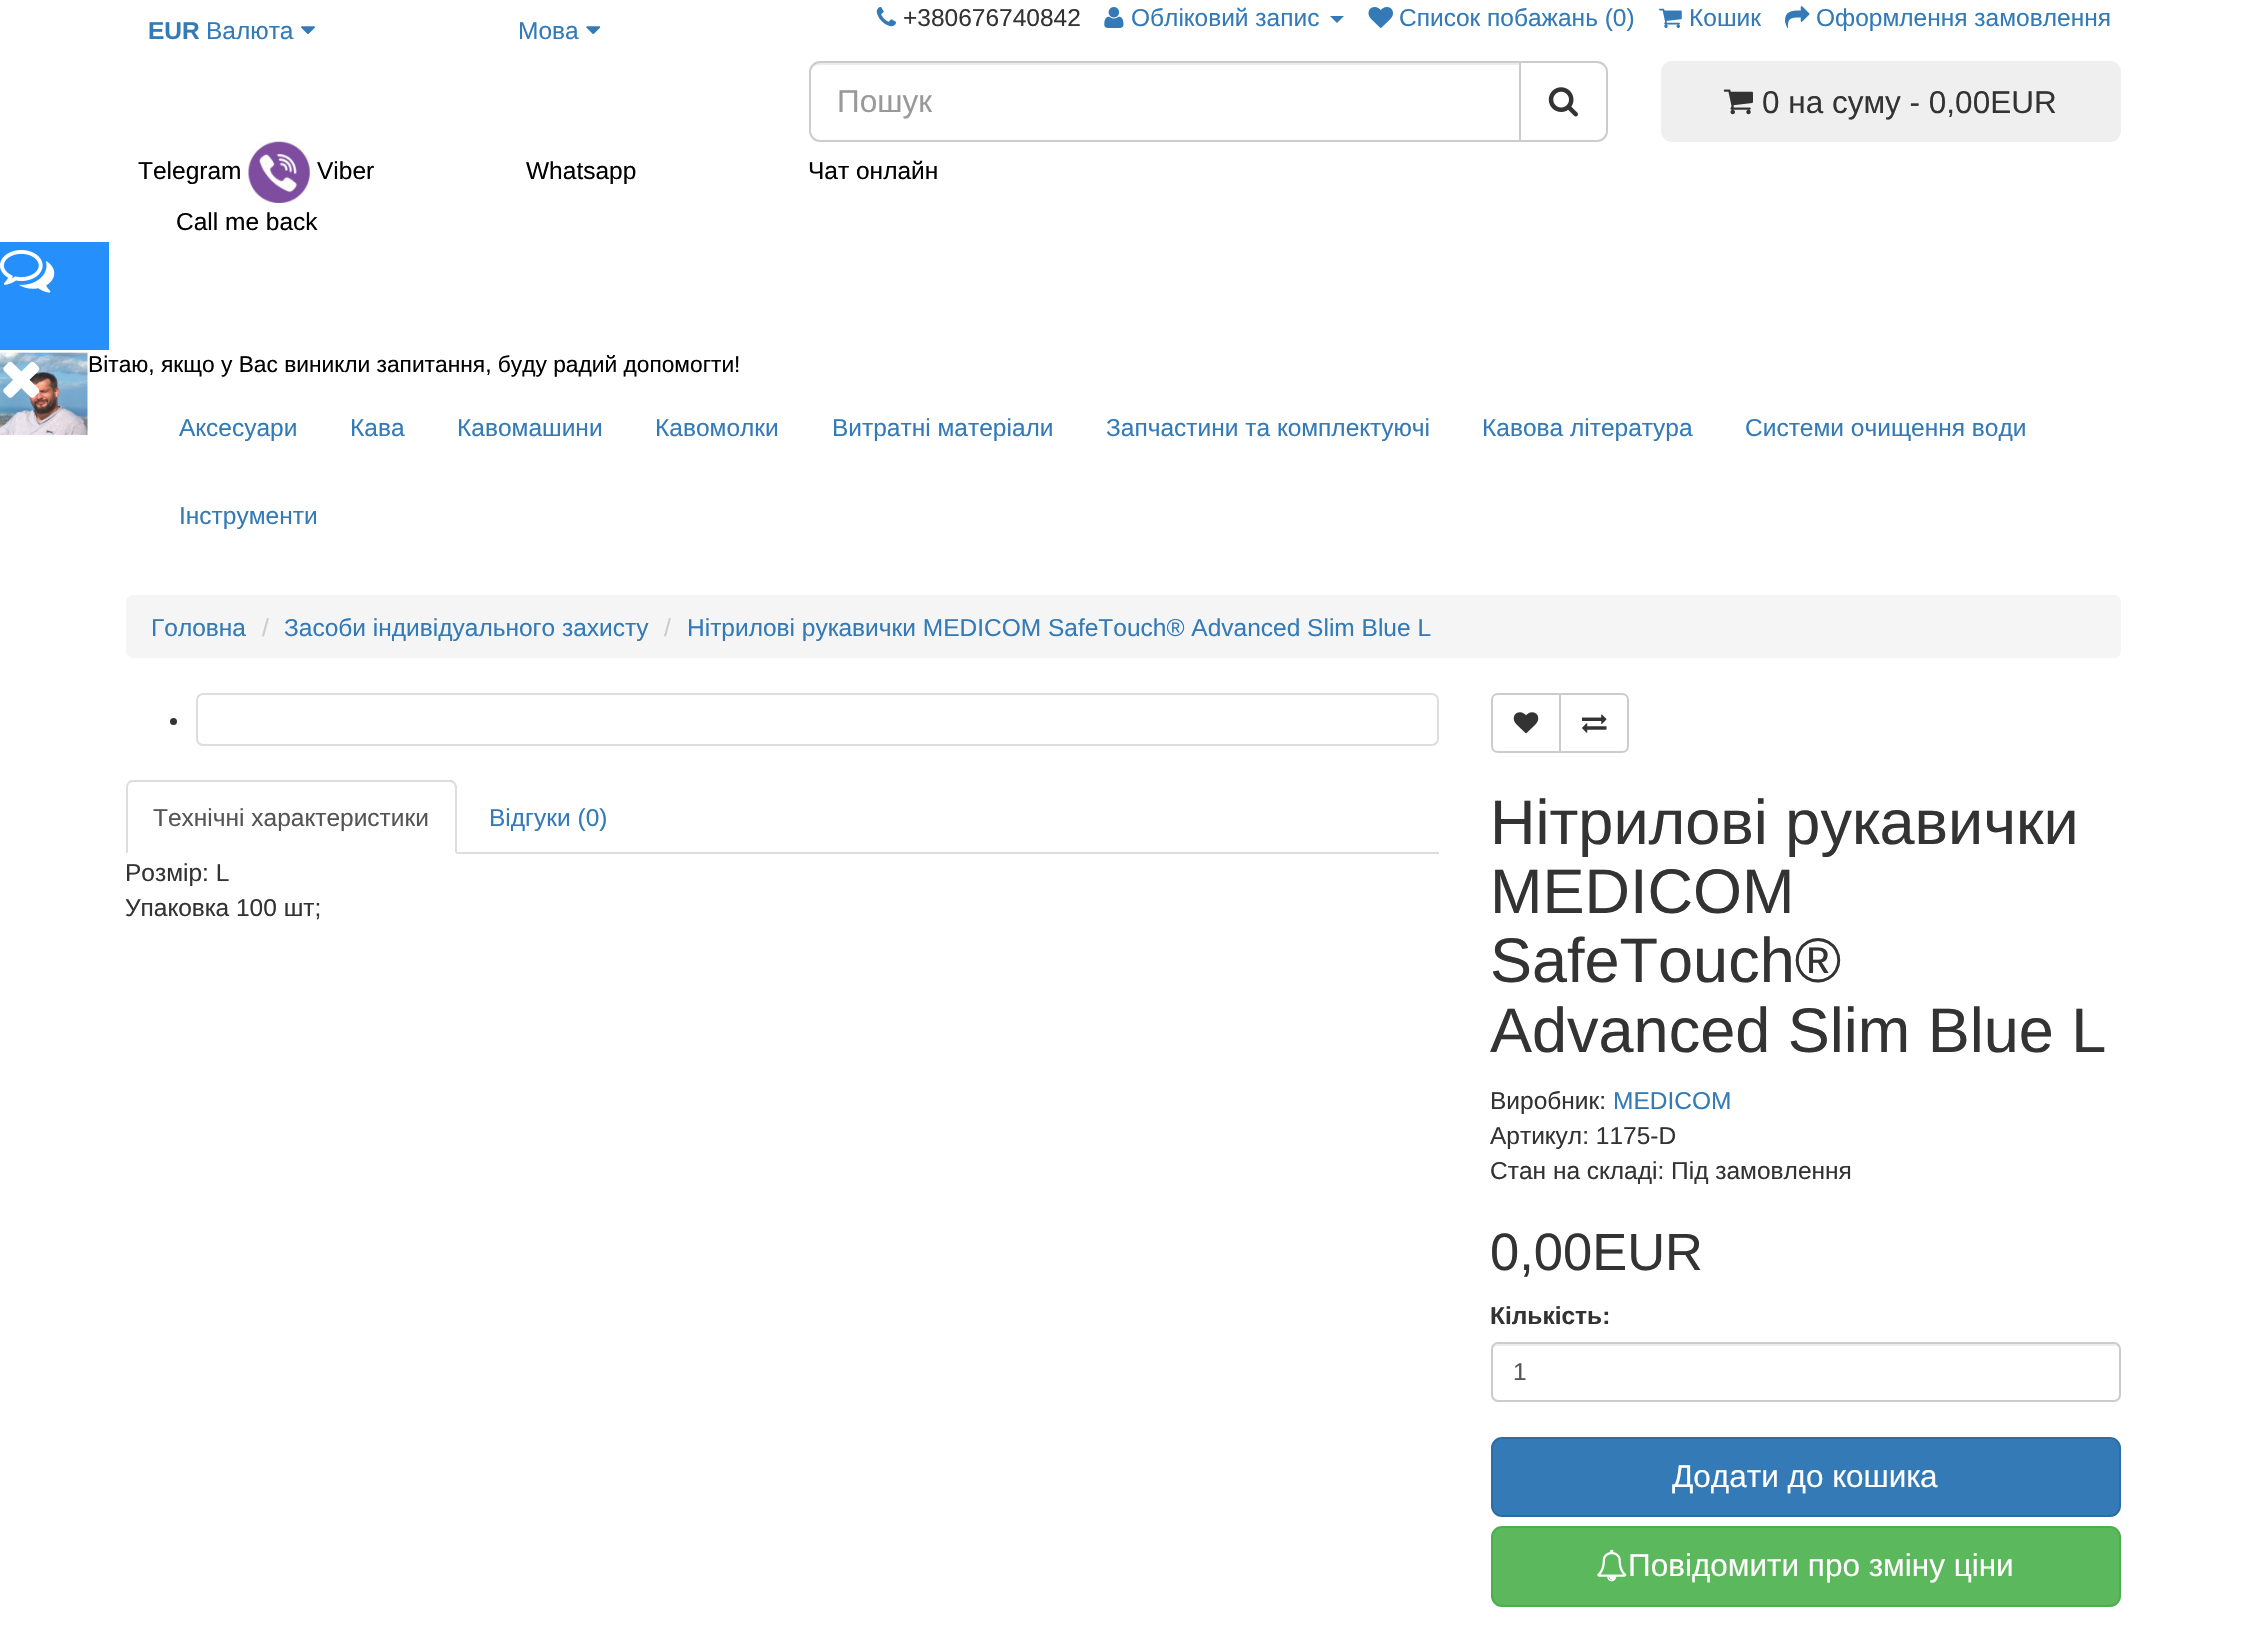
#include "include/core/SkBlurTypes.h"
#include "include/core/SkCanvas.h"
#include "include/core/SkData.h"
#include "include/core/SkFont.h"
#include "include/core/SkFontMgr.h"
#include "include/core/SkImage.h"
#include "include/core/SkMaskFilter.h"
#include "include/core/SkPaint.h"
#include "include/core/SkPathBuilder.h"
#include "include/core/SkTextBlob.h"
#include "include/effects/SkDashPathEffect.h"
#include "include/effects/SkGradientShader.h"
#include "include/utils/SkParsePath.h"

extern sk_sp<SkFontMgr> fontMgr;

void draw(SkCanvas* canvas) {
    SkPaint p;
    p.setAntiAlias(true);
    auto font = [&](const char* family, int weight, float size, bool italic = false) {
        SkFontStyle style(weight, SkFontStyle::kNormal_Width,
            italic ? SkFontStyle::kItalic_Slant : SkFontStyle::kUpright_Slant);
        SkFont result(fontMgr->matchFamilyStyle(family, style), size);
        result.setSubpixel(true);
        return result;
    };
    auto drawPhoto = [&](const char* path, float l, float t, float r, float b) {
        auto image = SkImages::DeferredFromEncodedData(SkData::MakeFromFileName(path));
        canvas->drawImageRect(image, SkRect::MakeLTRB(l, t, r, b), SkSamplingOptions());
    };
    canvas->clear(0xFFFFFFFF);
    auto font1 = font("Liberation Sans", 700, 24.5f);
    p.setColor(0xFF337AB7);
    canvas->drawString("EUR", 148, 39, font1, p);
    auto font2 = font("Liberation Sans", 400, 24.5f);
    canvas->drawString("Валюта", 206, 39, font2, p);
    drawPhoto("media/1.png", 301, 26, 315, 34);
    canvas->drawString("Мова", 518, 39, font2, p);
    drawPhoto("media/2.png", 586, 26, 601, 35);
    drawPhoto("media/3.png", 876, 7, 896, 27);
    p.setColor(0xFF333333);
    canvas->drawString("+380676740842", 903, 26, font2, p);
    drawPhoto("media/4.png", 1104, 7, 1124, 28);
    p.setColor(0xFF337AB7);
    canvas->drawString("Обліковий запис", 1131, 26, font2, p);
    canvas->drawPath(SkPathBuilder().moveTo(1330, 16).lineTo(1344, 16).lineTo(1337, 23).close().detach(), p);
    drawPhoto("media/5.png", 1368, 7, 1393, 28);
    canvas->drawString("Список побажань (0)", 1399, 26, font2, p);
    drawPhoto("media/6.png", 1659, 8, 1682, 28);
    canvas->drawString("Кошик", 1689, 26, font2, p);
    drawPhoto("media/7.png", 1785, 6, 1810, 28);
    canvas->drawString("Оформлення замовлення", 1816, 26, font2, p);
    p.setColor(0xFFECECEC);
    canvas->drawPath(SkPathBuilder().moveTo(819, 65).lineTo(1519, 65).lineTo(1519, 63).lineTo(819, 63).cubicTo(813, 63, 810, 68, 810, 74).cubicTo(810, 69, 814, 65, 819, 65).close().detach(), p);
    p.setStyle(SkPaint::kStroke_Style);
    p.setStrokeWidth(2);
    p.setColor(0xFFCCCCCC);
    canvas->drawPath(SkPathBuilder().moveTo(820, 62).lineTo(1520, 62).lineTo(1520, 141).lineTo(820, 141).cubicTo(814.5f, 141, 810, 136.5f, 810, 131).lineTo(810, 72).cubicTo(810, 66.5f, 814.5f, 62, 820, 62).close().detach(), p);
    auto font3 = font("Liberation Sans", 400, 31.5f);
    p.setStyle(SkPaint::kFill_Style);
    p.setColor(0xFF999999);
    canvas->drawString("Пошук", 837, 112, font3, p);
    p.setColor(0xFFFFFFFF);
    canvas->drawPath(SkPathBuilder().moveTo(1520, 62).lineTo(1597, 62).cubicTo(1602.5f, 62, 1607, 66.5f, 1607, 72).lineTo(1607, 131).cubicTo(1607, 136.5f, 1602.5f, 141, 1597, 141).lineTo(1520, 141).close().detach(), p);
    p.setStyle(SkPaint::kStroke_Style);
    p.setColor(0xFFCCCCCC);
    canvas->drawPath(SkPathBuilder().moveTo(1520, 62).lineTo(1597, 62).cubicTo(1602.5f, 62, 1607, 66.5f, 1607, 72).lineTo(1607, 131).cubicTo(1607, 136.5f, 1602.5f, 141, 1597, 141).lineTo(1520, 141).close().detach(), p);
    drawPhoto("media/8.png", 1548, 87, 1578, 117);
    p.setStyle(SkPaint::kFill_Style);
    p.setColor(0xFFEFEFEF);
    canvas->drawRoundRect(SkRect::MakeLTRB(1661, 61, 2121, 142), 11, 11, p);
    drawPhoto("media/9.png", 1723, 89, 1753, 115);
    p.setColor(0xFF333333);
    canvas->drawString("0 на суму - 0,00EUR", 1762, 113, font3, p);
    p.setColor(0xFF000000);
    canvas->drawString("Telegram", 138, 179, font2, p);
    drawPhoto("media/10.png", 248, 141, 310, 203);
    {
        const struct { const char* s; float x, y; } items[] = {
            {"Viber", 317, 179},
            {"Whatsapp", 526, 179},
            {"Чат онлайн", 808, 179},
            {"Call me back", 176, 230},
        };
        for (auto [s, x, y] : items) {
            canvas->drawString(s, x, y, font2, p);
        }
    }
    p.setColor(0xFF2590FB);
    canvas->drawRect(SkRect::MakeLTRB(0, 242, 109, 350), p);
    drawPhoto("media/11.png", 0, 250, 55, 293);
    drawPhoto("media/13.png", 0, 350, 88, 437);
    drawPhoto("media/12.png", 3, 361, 40, 398);
    auto font4 = font("Liberation Sans", 400, 22.75f);
    p.setColor(0xFF000000);
    canvas->drawString("Вітаю, якщо у Вас виникли запитання, буду радий допомогти!", 88, 372, font4, p);
    p.setColor(0xFF337AB7);
    {
        const struct { const char* s; float x, y; } items[] = {
            {"Аксесуари", 179, 436},
            {"Кава", 350, 436},
            {"Кавомашини", 457, 436},
            {"Кавомолки", 655, 436},
            {"Витратні матеріали", 832, 436},
            {"Запчастини та комплектуючі", 1106, 436},
            {"Кавова література", 1482, 436},
            {"Cистеми очищення води", 1745, 436},
            {"Інструменти", 179, 524},
        };
        for (auto [s, x, y] : items) {
            canvas->drawString(s, x, y, font2, p);
        }
    }
    p.setColor(0xFFF5F5F5);
    canvas->drawRoundRect(SkRect::MakeLTRB(126, 595, 2121, 658), 7, 7, p);
    p.setColor(0xFF337AB7);
    canvas->drawString("Головна", 151, 636, font2, p);
    p.setColor(0xFFCCCCCC);
    canvas->drawString("/", 262, 636, font2, p);
    p.setColor(0xFF337AB7);
    canvas->drawString("Засоби індивідуального захисту", 284, 636, font2, p);
    p.setColor(0xFFCCCCCC);
    canvas->drawString("/", 664, 636, font2, p);
    p.setColor(0xFF337AB7);
    canvas->drawString("Нітрилові рукавички MEDICOM SafeTouch® Advanced Slim Blue L", 687, 636, font2, p);
    p.setColor(0xFF333333);
    canvas->drawCircle(173.5f, 721.5f, 3.5f, p);
    p.setStyle(SkPaint::kStroke_Style);
    p.setColor(0xFFDDDDDD);
    canvas->drawRoundRect(SkRect::MakeLTRB(197, 694, 1438, 745), 6, 6, p);
    p.setStyle(SkPaint::kFill_Style);
    canvas->drawRect(SkRect::MakeLTRB(457, 852, 1439, 854), p);
    canvas->drawPath(SkPathBuilder().moveTo(133, 782).cubicTo(132, 782, 130, 783, 129, 784).lineTo(128, 782).lineTo(131, 780).lineTo(452, 780).lineTo(455, 782).lineTo(454, 784).cubicTo(453, 783, 451, 782, 450, 782).close().detach(), p);
    canvas->drawPath(SkPathBuilder().moveTo(457, 786).lineTo(457, 854).lineTo(455, 852).lineTo(455, 788).cubicTo(455, 786, 454, 785, 454, 784).lineTo(455, 782).close().detach(), p);
    canvas->drawPath(SkPathBuilder().moveTo(126, 854).lineTo(128, 852).lineTo(128, 788).cubicTo(128, 786, 128, 785, 129, 784).lineTo(128, 782).cubicTo(127, 784, 126, 786, 126, 788).close().detach(), p);
    p.setColor(0xFF555555);
    canvas->drawString("Технічні характеристики", 153, 826, font2, p);
    p.setColor(0xFF337AB7);
    canvas->drawString("Відгуки (0)", 489, 826, font2, p);
    p.setColor(0xFF333333);
    canvas->drawString("Розмір: L", 125, 881, font2, p);
    canvas->drawString("Упаковка 100 шт;", 125, 916, font2, p);
    p.setStyle(SkPaint::kStroke_Style);
    p.setColor(0xFFCCCCCC);
    canvas->drawPath(SkPathBuilder().moveTo(1498, 694).lineTo(1560, 694).lineTo(1560, 752).lineTo(1498, 752).cubicTo(1494.5f, 752, 1492, 749.5f, 1492, 746).lineTo(1492, 700).cubicTo(1492, 696.5f, 1494.5f, 694, 1498, 694).close().detach(), p);
    drawPhoto("media/14.png", 1513, 712, 1539, 734);
    p.setStyle(SkPaint::kFill_Style);
    p.setColor(0xFFFFFFFF);
    canvas->drawPath(SkPathBuilder().moveTo(1560, 694).lineTo(1622, 694).cubicTo(1625.5f, 694, 1628, 696.5f, 1628, 700).lineTo(1628, 746).cubicTo(1628, 749.5f, 1625.5f, 752, 1622, 752).lineTo(1560, 752).close().detach(), p);
    p.setStyle(SkPaint::kStroke_Style);
    p.setColor(0xFFCCCCCC);
    canvas->drawPath(SkPathBuilder().moveTo(1560, 694).lineTo(1622, 694).cubicTo(1625.5f, 694, 1628, 696.5f, 1628, 700).lineTo(1628, 746).cubicTo(1628, 749.5f, 1625.5f, 752, 1622, 752).lineTo(1560, 752).close().detach(), p);
    drawPhoto("media/15.png", 1582, 714, 1607, 733);
    auto font5 = font("Liberation Sans", 400, 63);
    p.setStyle(SkPaint::kFill_Style);
    p.setColor(0xFF333333);
    {
        const struct { const char* s; float x, y; } items[] = {
            {"Нітрилові рукавички", 1490, 844},
            {"MEDICOM", 1490, 913},
            {"SafeTouch®", 1490, 982},
            {"Advanced Slim Blue L", 1490, 1052},
        };
        for (auto [s, x, y] : items) {
            canvas->drawString(s, x, y, font5, p);
        }
    }
    canvas->drawString("Виробник:", 1490, 1109, font2, p);
    p.setColor(0xFF337AB7);
    canvas->drawString("MEDICOM", 1613, 1109, font2, p);
    p.setColor(0xFF333333);
    canvas->drawString("Артикул: 1175-D", 1490, 1144, font2, p);
    canvas->drawString("Стан на складі: Під замовлення", 1490, 1179, font2, p);
    auto font6 = font("Liberation Sans", 400, 52.5f);
    canvas->drawString("0,00EUR", 1490, 1270, font6, p);
    canvas->drawString("Кількість:", 1490, 1324, font1, p);
    p.setColor(0xFFECECEC);
    canvas->drawPath(SkPathBuilder().moveTo(1498, 1346).lineTo(2114, 1346).cubicTo(2117, 1346, 2119, 1348, 2119, 1351).cubicTo(2119, 1348, 2118, 1344, 2114, 1344).lineTo(1498, 1344).cubicTo(1494, 1344, 1493, 1348, 1493, 1351).cubicTo(1493, 1348, 1495, 1346, 1498, 1346).close().detach(), p);
    p.setStyle(SkPaint::kStroke_Style);
    p.setColor(0xFFCCCCCC);
    canvas->drawRoundRect(SkRect::MakeLTRB(1492, 1343, 2120, 1401), 6, 6, p);
    p.setStyle(SkPaint::kFill_Style);
    p.setColor(0xFF555555);
    canvas->drawString("1", 1513, 1380, font2, p);
    p.setColor(0xFF337AB7);
    canvas->drawRoundRect(SkRect::MakeLTRB(1492, 1438, 2120, 1516), 10, 10, p);
    p.setStyle(SkPaint::kStroke_Style);
    p.setColor(0xFF2E6DA4);
    canvas->drawRoundRect(SkRect::MakeLTRB(1492, 1438, 2120, 1516), 10, 10, p);
    p.setStyle(SkPaint::kFill_Style);
    p.setColor(0xFFFFFFFF);
    canvas->drawString("Додати до кошика", 1672, 1487, font3, p);
    p.setColor(0xFF5CB85C);
    canvas->drawRoundRect(SkRect::MakeLTRB(1492, 1527, 2120, 1606), 10, 10, p);
    p.setStyle(SkPaint::kStroke_Style);
    p.setColor(0xFF4CAE4C);
    canvas->drawRoundRect(SkRect::MakeLTRB(1492, 1527, 2120, 1606), 10, 10, p);
    drawPhoto("media/16.png", 1597, 1549, 1627, 1582);
    p.setStyle(SkPaint::kFill_Style);
    p.setColor(0xFFFFFFFF);
    canvas->drawString("Повідомити про зміну ціни", 1628, 1576, font3, p);
}
